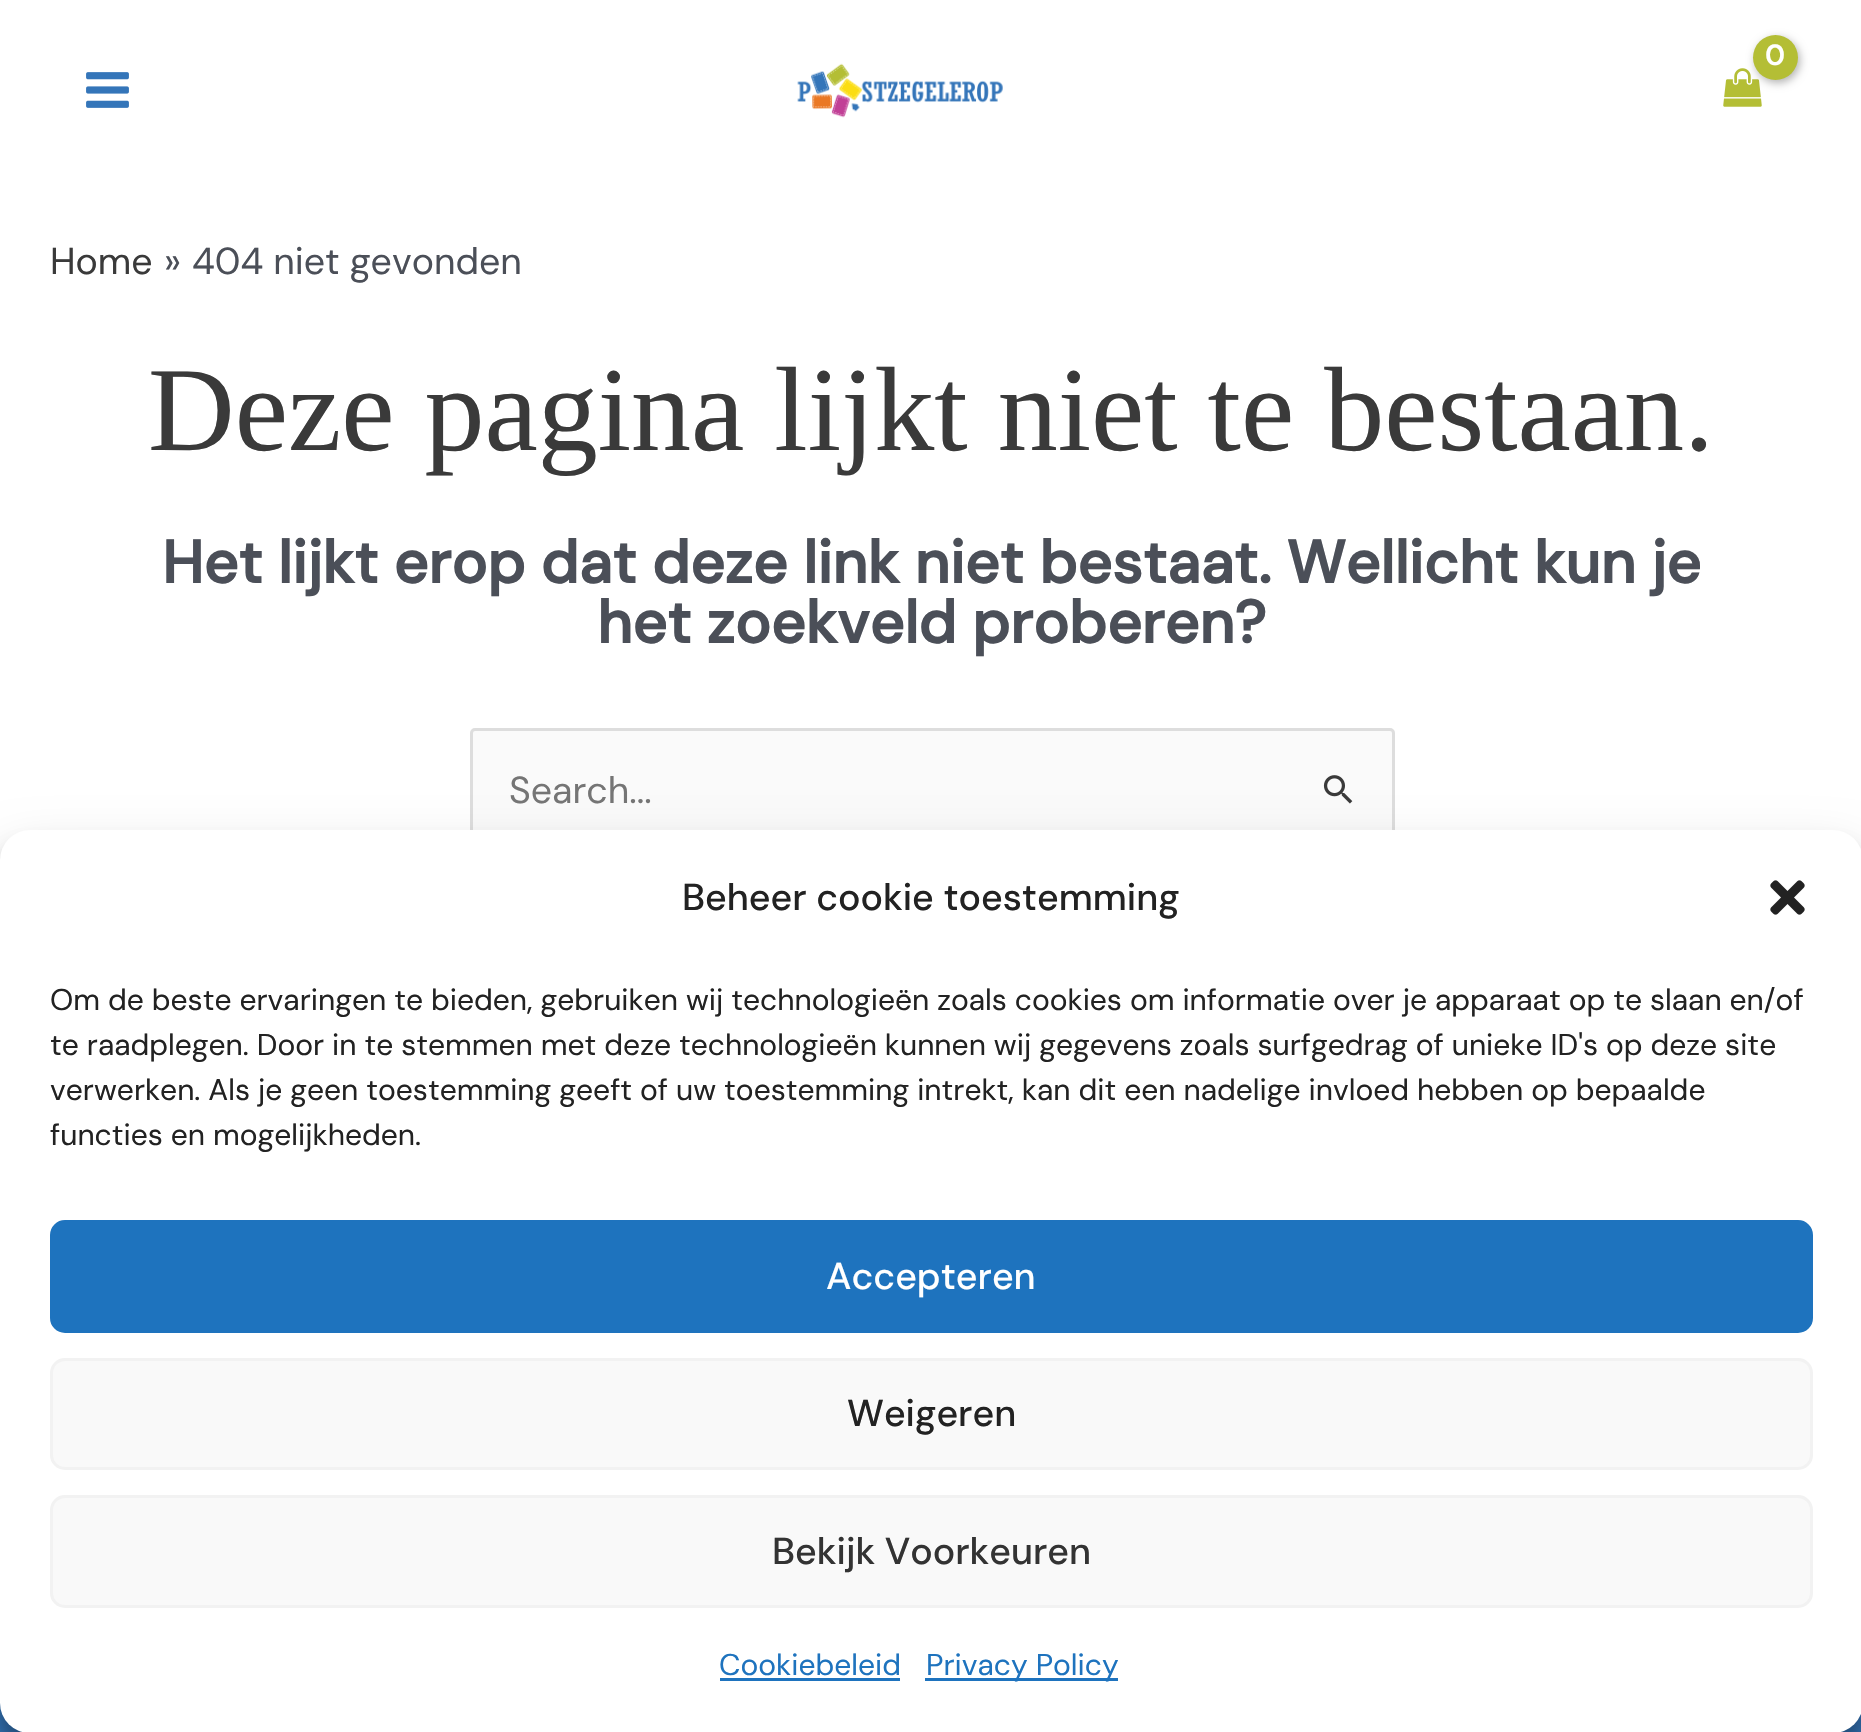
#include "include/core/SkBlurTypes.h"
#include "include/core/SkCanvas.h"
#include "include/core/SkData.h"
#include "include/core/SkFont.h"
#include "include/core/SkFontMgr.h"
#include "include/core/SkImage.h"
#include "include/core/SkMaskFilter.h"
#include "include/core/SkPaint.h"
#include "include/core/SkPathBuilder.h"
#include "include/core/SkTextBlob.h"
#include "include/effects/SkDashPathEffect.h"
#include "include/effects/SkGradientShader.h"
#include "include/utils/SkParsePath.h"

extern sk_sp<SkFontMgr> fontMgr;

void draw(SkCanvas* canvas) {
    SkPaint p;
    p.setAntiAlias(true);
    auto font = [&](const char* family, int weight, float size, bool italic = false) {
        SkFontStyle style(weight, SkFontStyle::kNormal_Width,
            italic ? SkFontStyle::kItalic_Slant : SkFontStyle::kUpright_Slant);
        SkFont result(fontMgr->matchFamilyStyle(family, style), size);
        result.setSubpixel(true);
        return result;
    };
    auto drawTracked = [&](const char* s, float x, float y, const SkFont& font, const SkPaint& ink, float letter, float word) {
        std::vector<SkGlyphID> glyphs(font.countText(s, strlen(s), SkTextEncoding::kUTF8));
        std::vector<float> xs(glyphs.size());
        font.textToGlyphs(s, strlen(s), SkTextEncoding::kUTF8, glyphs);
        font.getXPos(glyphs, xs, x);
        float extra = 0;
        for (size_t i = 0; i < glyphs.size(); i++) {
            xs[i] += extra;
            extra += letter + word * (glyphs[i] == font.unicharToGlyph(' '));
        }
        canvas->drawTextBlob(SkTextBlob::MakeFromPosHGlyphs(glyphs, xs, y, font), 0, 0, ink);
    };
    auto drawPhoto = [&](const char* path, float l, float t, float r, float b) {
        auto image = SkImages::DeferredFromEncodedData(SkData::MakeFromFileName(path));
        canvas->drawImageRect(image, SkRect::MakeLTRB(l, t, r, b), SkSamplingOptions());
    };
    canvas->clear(0xFFFFFFFF);
    drawPhoto("media/1.png", 1723, 68, 1762, 107);
    p.setColor(0x4D000000);
    p.setMaskFilter(SkMaskFilter::MakeBlur(kNormal_SkBlurStyle, 4));
    canvas->drawRoundRect(SkRect::MakeLTRB(1755, 38, 1800, 83), 22.5f, 22.5f, p);
    p.setMaskFilter(nullptr);
    p.setColor(0xFFB4BE35);
    canvas->drawCircle(1775.5f, 57.5f, 22.5f, p);
    auto font1 = font("DM Sans", 700, 28);
    p.setColor(0xFFFFFFFF);
    drawTracked("0", 1765, 65, font1, p, -1, 0);
    drawPhoto("media/2.png", 86, 72, 129, 108);
    drawPhoto("media/3.png", 797, 63, 1003, 118);
    auto font2 = font("DM Sans", 400, 37.5f);
    p.setColor(0xFF3A3A3A);
    canvas->drawString("Home", 50, 274, font2, p);
    p.setColor(0xFF4B4F58);
    canvas->drawString("»", 164, 274, font2, p);
    canvas->drawString("404 niet gevonden", 192, 274, font2, p);
    auto font3 = font("Liberation Serif", 400, 120);
    p.setColor(0xFF3A3A3A);
    canvas->drawString("Deze pagina lijkt niet te bestaan.", 148, 450, font3, p);
    auto font4 = font("DM Sans", 700, 60);
    p.setColor(0xFF4B4F58);
    canvas->drawString("Het lijkt erop dat deze link niet bestaat. Wellicht kun je", 162, 583, font4, p);
    canvas->drawString("het zoekveld proberen?", 597, 643, font4, p);
    p.setColor(0xFFFAFAFA);
    canvas->drawRoundRect(SkRect::MakeLTRB(471.5f, 729.5f, 1393.5f, 851.5f), 3.5f, 3.5f, p);
    p.setStyle(SkPaint::kStroke_Style);
    p.setStrokeWidth(3);
    p.setColor(0xFFDDDDDD);
    canvas->drawRoundRect(SkRect::MakeLTRB(471.5f, 729.5f, 1393.5f, 851.5f), 3.5f, 3.5f, p);
    p.setStyle(SkPaint::kFill_Style);
    p.setColor(0xFF757575);
    canvas->drawString("Search...", 509, 803, font2, p);
    drawPhoto("media/4.png", 1323, 775, 1353, 804);
    p.setColor(0xFF3475B9);
    canvas->drawRect(SkRect::MakeLTRB(0, 1703, 1861, 1732), p);
    p.setColor(0x3B000000);
    p.setMaskFilter(SkMaskFilter::MakeBlur(kNormal_SkBlurStyle, 7.5f));
    canvas->drawRoundRect(SkRect::MakeLTRB(0, 845, 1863, 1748), 30, 30, p);
    p.setMaskFilter(nullptr);
    p.setColor(0x30000000);
    p.setMaskFilter(SkMaskFilter::MakeBlur(kNormal_SkBlurStyle, 25));
    canvas->drawRoundRect(SkRect::MakeLTRB(0, 855, 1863, 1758), 30, 30, p);
    p.setMaskFilter(nullptr);
    p.setColor(0xFFFFFFFF);
    canvas->drawRoundRect(SkRect::MakeLTRB(0, 830, 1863, 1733), 30, 30, p);
    auto font5 = font("DM Sans", 500, 37.5f);
    p.setColor(0xFF222222);
    canvas->drawString("Beheer cookie toestemming", 682, 910, font5, p);
    drawPhoto("media/5.png", 1770, 880, 1805, 915);
    auto font6 = font("DM Sans", 400, 30);
    {
        const struct { const char* s; float x, y; } items[] = {
            {"Om de beste ervaringen te bieden, gebruiken wij technologieën zoals cookies om informatie over je apparaat op te slaan en/of", 50, 1010},
            {"te raadplegen. Door in te stemmen met deze technologieën kunnen wij gegevens zoals surfgedrag of unieke ID's op deze site", 50, 1055},
            {"verwerken. Als je geen toestemming geeft of uw toestemming intrekt, kan dit een nadelige invloed hebben op bepaalde", 50, 1100},
            {"functies en mogelijkheden.", 50, 1145},
        };
        for (auto [s, x, y] : items) {
            canvas->drawString(s, x, y, font6, p);
        }
    }
    p.setColor(0xFF1E73BE);
    canvas->drawRoundRect(SkRect::MakeLTRB(51.5f, 1221.5f, 1811.5f, 1331.5f), 13.5f, 13.5f, p);
    p.setStyle(SkPaint::kStroke_Style);
    canvas->drawRoundRect(SkRect::MakeLTRB(51.5f, 1221.5f, 1811.5f, 1331.5f), 13.5f, 13.5f, p);
    p.setStyle(SkPaint::kFill_Style);
    p.setColor(0xFFFFFFFF);
    canvas->drawString("Accepteren", 826, 1289, font5, p);
    p.setColor(0xFFF9F9F9);
    canvas->drawRoundRect(SkRect::MakeLTRB(51.5f, 1359.5f, 1811.5f, 1468.5f), 13.5f, 13.5f, p);
    p.setStyle(SkPaint::kStroke_Style);
    p.setColor(0xFFF2F2F2);
    canvas->drawRoundRect(SkRect::MakeLTRB(51.5f, 1359.5f, 1811.5f, 1468.5f), 13.5f, 13.5f, p);
    p.setStyle(SkPaint::kFill_Style);
    p.setColor(0xFF222222);
    canvas->drawString("Weigeren", 847, 1426, font5, p);
    p.setColor(0xFFF9F9F9);
    canvas->drawRoundRect(SkRect::MakeLTRB(51.5f, 1496.5f, 1811.5f, 1606.5f), 13.5f, 13.5f, p);
    p.setStyle(SkPaint::kStroke_Style);
    p.setColor(0xFFF2F2F2);
    canvas->drawRoundRect(SkRect::MakeLTRB(51.5f, 1496.5f, 1811.5f, 1606.5f), 13.5f, 13.5f, p);
    p.setStyle(SkPaint::kFill_Style);
    p.setColor(0xFF333333);
    canvas->drawString("Bekijk Voorkeuren", 772, 1564, font5, p);
    p.setColor(0xFF1E73BE);
    canvas->drawString("Cookiebeleid", 719, 1675, font6, p);
    canvas->drawRect(SkRect::MakeLTRB(720, 1678, 900, 1681), p);
    canvas->drawRect(SkRect::MakeLTRB(925, 1678, 1118, 1681), p);
    canvas->drawString("Privacy Policy", 926, 1675, font6, p);
}
